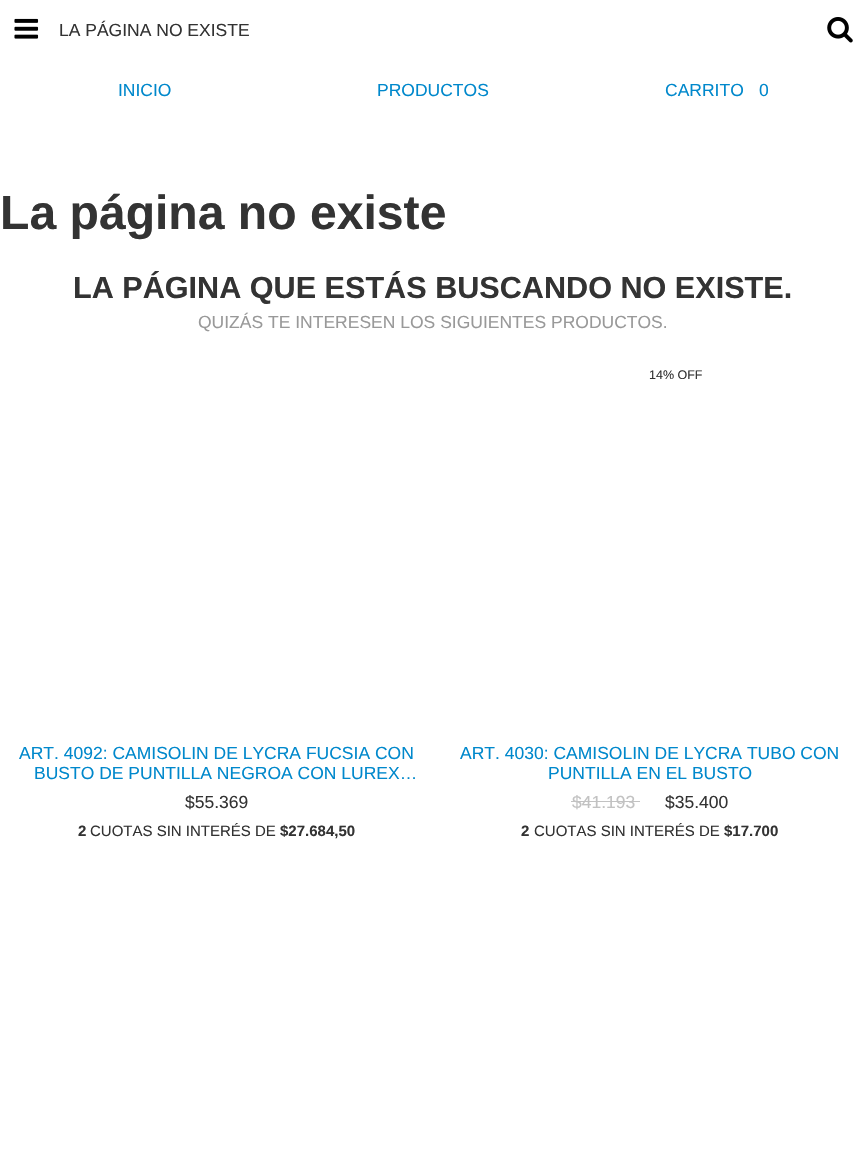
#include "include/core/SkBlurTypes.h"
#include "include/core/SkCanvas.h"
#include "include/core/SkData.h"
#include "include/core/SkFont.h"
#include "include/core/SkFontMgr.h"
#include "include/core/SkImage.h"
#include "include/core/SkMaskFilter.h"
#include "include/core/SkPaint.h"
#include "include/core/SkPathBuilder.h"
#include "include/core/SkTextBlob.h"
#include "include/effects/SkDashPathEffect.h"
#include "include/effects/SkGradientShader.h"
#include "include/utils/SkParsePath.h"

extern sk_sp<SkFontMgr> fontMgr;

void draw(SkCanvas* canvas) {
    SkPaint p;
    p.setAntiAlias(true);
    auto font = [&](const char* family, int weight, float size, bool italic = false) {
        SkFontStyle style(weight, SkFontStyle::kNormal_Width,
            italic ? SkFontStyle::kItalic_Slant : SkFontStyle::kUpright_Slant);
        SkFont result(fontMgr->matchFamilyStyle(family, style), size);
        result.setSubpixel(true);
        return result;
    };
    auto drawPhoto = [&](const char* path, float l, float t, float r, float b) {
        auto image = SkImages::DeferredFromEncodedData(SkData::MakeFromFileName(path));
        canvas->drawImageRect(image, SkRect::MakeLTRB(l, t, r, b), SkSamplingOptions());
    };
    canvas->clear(0xFFFFFFFF);
    drawPhoto("media/1.png", 14, 18, 39, 39);
    auto font1 = font("Liberation Sans", 400, 17.5f);
    p.setColor(0xFF333333);
    canvas->drawString("LA PÁGINA NO EXISTE", 59, 36, font1, p);
    drawPhoto("media/2.png", 827, 17, 853, 43);
    p.setColor(0xFF0088CC);
    {
        const struct { const char* s; float x, y; } items[] = {
            {"INICIO", 118, 96},
            {"PRODUCTOS", 377, 96},
            {"CARRITO", 665, 96},
            {"0", 759, 96},
        };
        for (auto [s, x, y] : items) {
            canvas->drawString(s, x, y, font1, p);
        }
    }
    auto font2 = font("Liberation Sans", 700, 48.1f);
    p.setColor(0xFF333333);
    canvas->drawString("La página no existe", 0, 229, font2, p);
    auto font3 = font("Liberation Sans", 700, 30.6f);
    canvas->drawString("LA PÁGINA QUE ESTÁS BUSCANDO NO EXISTE.", 73, 298, font3, p);
    p.setColor(0xFF999999);
    canvas->drawString("QUIZÁS TE INTERESEN LOS SIGUIENTES PRODUCTOS.", 198, 328, font1, p);
    p.setColor(0xFF0088CC);
    canvas->drawString("ART. 4092: CAMISOLIN DE LYCRA FUCSIA CON", 19, 759, font1, p);
    canvas->drawString("BUSTO DE PUNTILLA NEGROA CON LUREX…", 34, 779, font1, p);
    p.setColor(0xFF333333);
    canvas->drawString("$55.369", 185, 808, font1, p);
    auto font4 = font("Liberation Sans", 700, 15);
    canvas->drawString("2", 78, 836, font4, p);
    auto font5 = font("Liberation Sans", 400, 15);
    canvas->drawString("CUOTAS SIN INTERÉS DE", 90, 836, font5, p);
    canvas->drawString("$27.684,50", 280, 836, font4, p);
    auto font6 = font("Liberation Sans", 400, 12.5f);
    canvas->drawString("14% OFF", 649, 379, font6, p);
    p.setColor(0xFF0088CC);
    canvas->drawString("ART. 4030: CAMISOLIN DE LYCRA TUBO CON", 460, 759, font1, p);
    canvas->drawString("PUNTILLA EN EL BUSTO", 548, 779, font1, p);
    p.setColor(0xFFC2C2C2);
    canvas->drawString("$41.193", 572, 808, font1, p);
    canvas->drawRect(SkRect::MakeLTRB(571, 801, 640, 802), p);
    p.setColor(0xFF333333);
    canvas->drawString("$35.400", 665, 808, font1, p);
    canvas->drawString("2", 521, 836, font4, p);
    canvas->drawString("CUOTAS SIN INTERÉS DE", 534, 836, font5, p);
    canvas->drawString("$17.700", 724, 836, font4, p);
}
